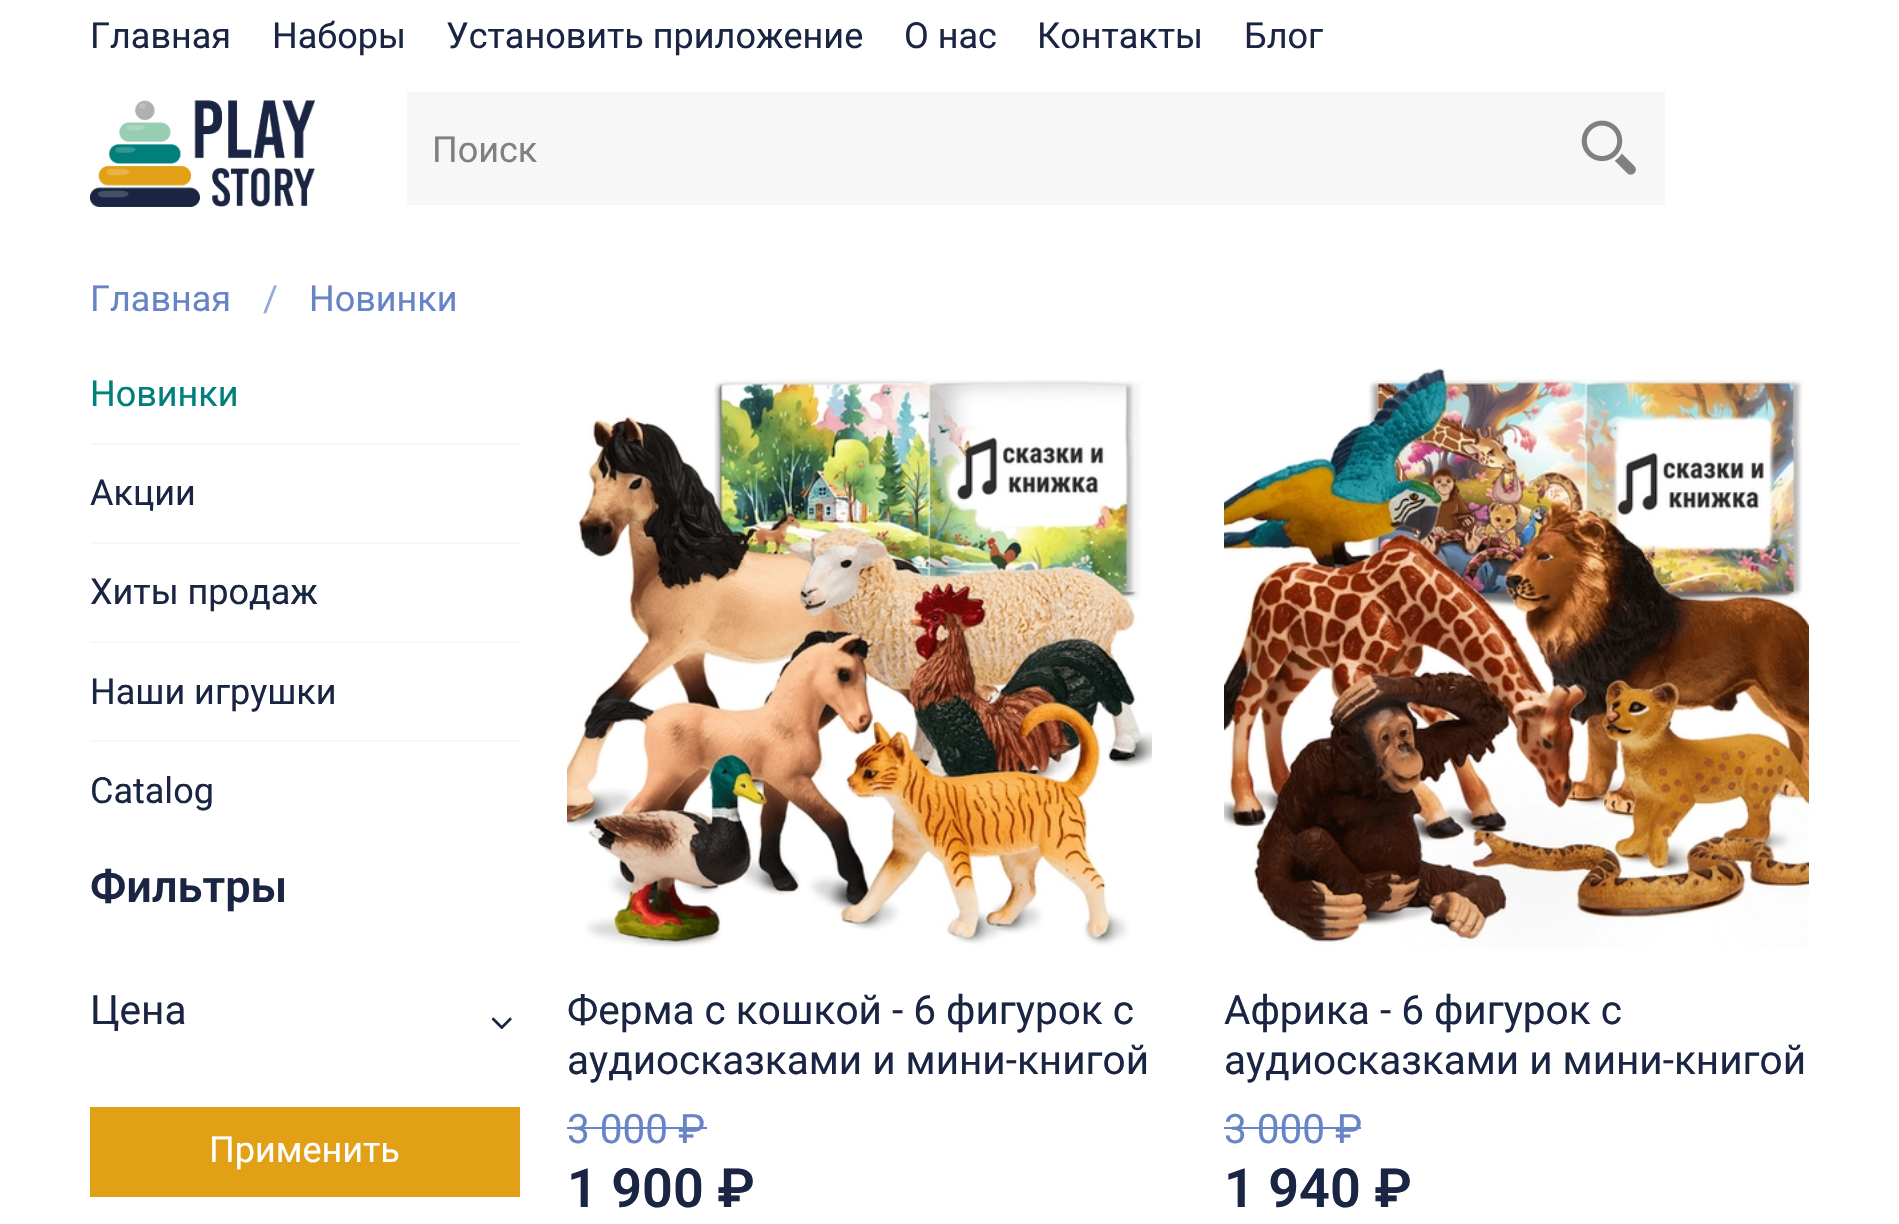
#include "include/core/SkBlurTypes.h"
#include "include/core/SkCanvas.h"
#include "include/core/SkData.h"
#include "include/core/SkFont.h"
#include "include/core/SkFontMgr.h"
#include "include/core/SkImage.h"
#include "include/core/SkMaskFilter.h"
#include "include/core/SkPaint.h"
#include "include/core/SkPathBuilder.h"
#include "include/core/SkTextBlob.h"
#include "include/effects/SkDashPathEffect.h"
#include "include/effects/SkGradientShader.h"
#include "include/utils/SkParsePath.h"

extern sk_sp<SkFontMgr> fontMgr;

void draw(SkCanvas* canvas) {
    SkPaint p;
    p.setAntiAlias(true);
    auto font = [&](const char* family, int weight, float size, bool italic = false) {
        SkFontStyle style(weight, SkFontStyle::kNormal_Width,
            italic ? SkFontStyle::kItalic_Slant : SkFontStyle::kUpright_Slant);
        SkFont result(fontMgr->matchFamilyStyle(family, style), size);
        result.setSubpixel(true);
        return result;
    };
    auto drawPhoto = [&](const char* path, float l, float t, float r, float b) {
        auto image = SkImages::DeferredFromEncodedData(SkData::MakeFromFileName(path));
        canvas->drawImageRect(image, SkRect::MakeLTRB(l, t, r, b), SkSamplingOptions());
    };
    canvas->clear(0xFFFFFFFF);
    auto font1 = font("Roboto", 400, 36);
    p.setColor(0xFF192542);
    {
        const struct { const char* s; float x, y; } items[] = {
            {"Главная", 90, 48},
            {"Наборы", 272, 48},
            {"Установить приложение", 446, 48},
            {"О нас", 904, 48},
            {"Контакты", 1037, 48},
            {"Блог", 1244, 48},
        };
        for (auto [s, x, y] : items) {
            canvas->drawString(s, x, y, font1, p);
        }
    }
    drawPhoto("media/1.png", 90, 100, 315, 207);
    p.setColor(0xFFF7F7F7);
    canvas->drawRect(SkRect::MakeLTRB(407, 92, 1665, 205), p);
    p.setColor(0xFF808080);
    canvas->drawString("Поиск", 432, 162, font1, p);
    drawPhoto("media/2.png", 1581, 120, 1636, 175);
    p.setColor(0xFF6784C5);
    canvas->drawString("Главная", 90, 311, font1, p);
    p.setColor(0xFF95A9D6);
    canvas->drawString("/", 263, 311, font1, p);
    p.setColor(0xFF6784C5);
    canvas->drawString("Новинки", 309, 311, font1, p);
    p.setColor(0xFFF7F7F7);
    canvas->drawRect(SkRect::MakeLTRB(90, 443, 520, 445), p);
    p.setColor(0xFF007F7B);
    canvas->drawString("Новинки", 90, 406, font1, p);
    p.setColor(0xFFF7F7F7);
    canvas->drawRect(SkRect::MakeLTRB(90, 542, 520, 544), p);
    p.setColor(0xFF192542);
    canvas->drawString("Акции", 90, 505, font1, p);
    p.setColor(0xFFF7F7F7);
    canvas->drawRect(SkRect::MakeLTRB(90, 641, 520, 643), p);
    p.setColor(0xFF192542);
    canvas->drawString("Хиты продаж", 90, 604, font1, p);
    p.setColor(0xFFF7F7F7);
    canvas->drawRect(SkRect::MakeLTRB(90, 740, 520, 742), p);
    p.setColor(0xFF192542);
    canvas->drawString("Наши игрушки", 90, 704, font1, p);
    canvas->drawString("Catalog", 90, 803, font1, p);
    auto font2 = font("Roboto", 600, 45);
    canvas->drawString("Фильтры", 90, 902, font2, p);
    auto font3 = font("Roboto", 400, 40.5f);
    canvas->drawString("Цена", 90, 1024, font3, p);
    drawPhoto("media/3.png", 491, 1017, 512, 1030);
    p.setColor(0xFFE2A017);
    canvas->drawRect(SkRect::MakeLTRB(90, 1107, 520, 1197), p);
    p.setColor(0xFFFFFFFF);
    canvas->drawString("Применить", 209, 1162, font1, p);
    drawPhoto("media/4.png", 567, 379, 1152, 948);
    p.setColor(0xFF192542);
    canvas->drawString("Ферма с кошкой - 6 фигурок с", 567, 1024, font3, p);
    canvas->drawString("аудиосказками и мини-книгой", 567, 1074, font3, p);
    p.setColor(0xFF6784C5);
    canvas->drawString("3 000 ₽", 567, 1143, font3, p);
    canvas->drawRect(SkRect::MakeLTRB(567, 1127, 707, 1129), p);
    auto font4 = font("Roboto", 600, 54);
    p.setColor(0xFF192542);
    canvas->drawString("1 900 ₽", 567, 1207, font4, p);
    drawPhoto("media/5.png", 1224, 368, 1809, 949);
    canvas->drawString("Африка - 6 фигурок с", 1224, 1024, font3, p);
    canvas->drawString("аудиосказками и мини-книгой", 1224, 1074, font3, p);
    p.setColor(0xFF6784C5);
    canvas->drawString("3 000 ₽", 1224, 1143, font3, p);
    canvas->drawRect(SkRect::MakeLTRB(1224, 1127, 1361, 1129), p);
    p.setColor(0xFF192542);
    canvas->drawString("1 940 ₽", 1224, 1207, font4, p);
}
